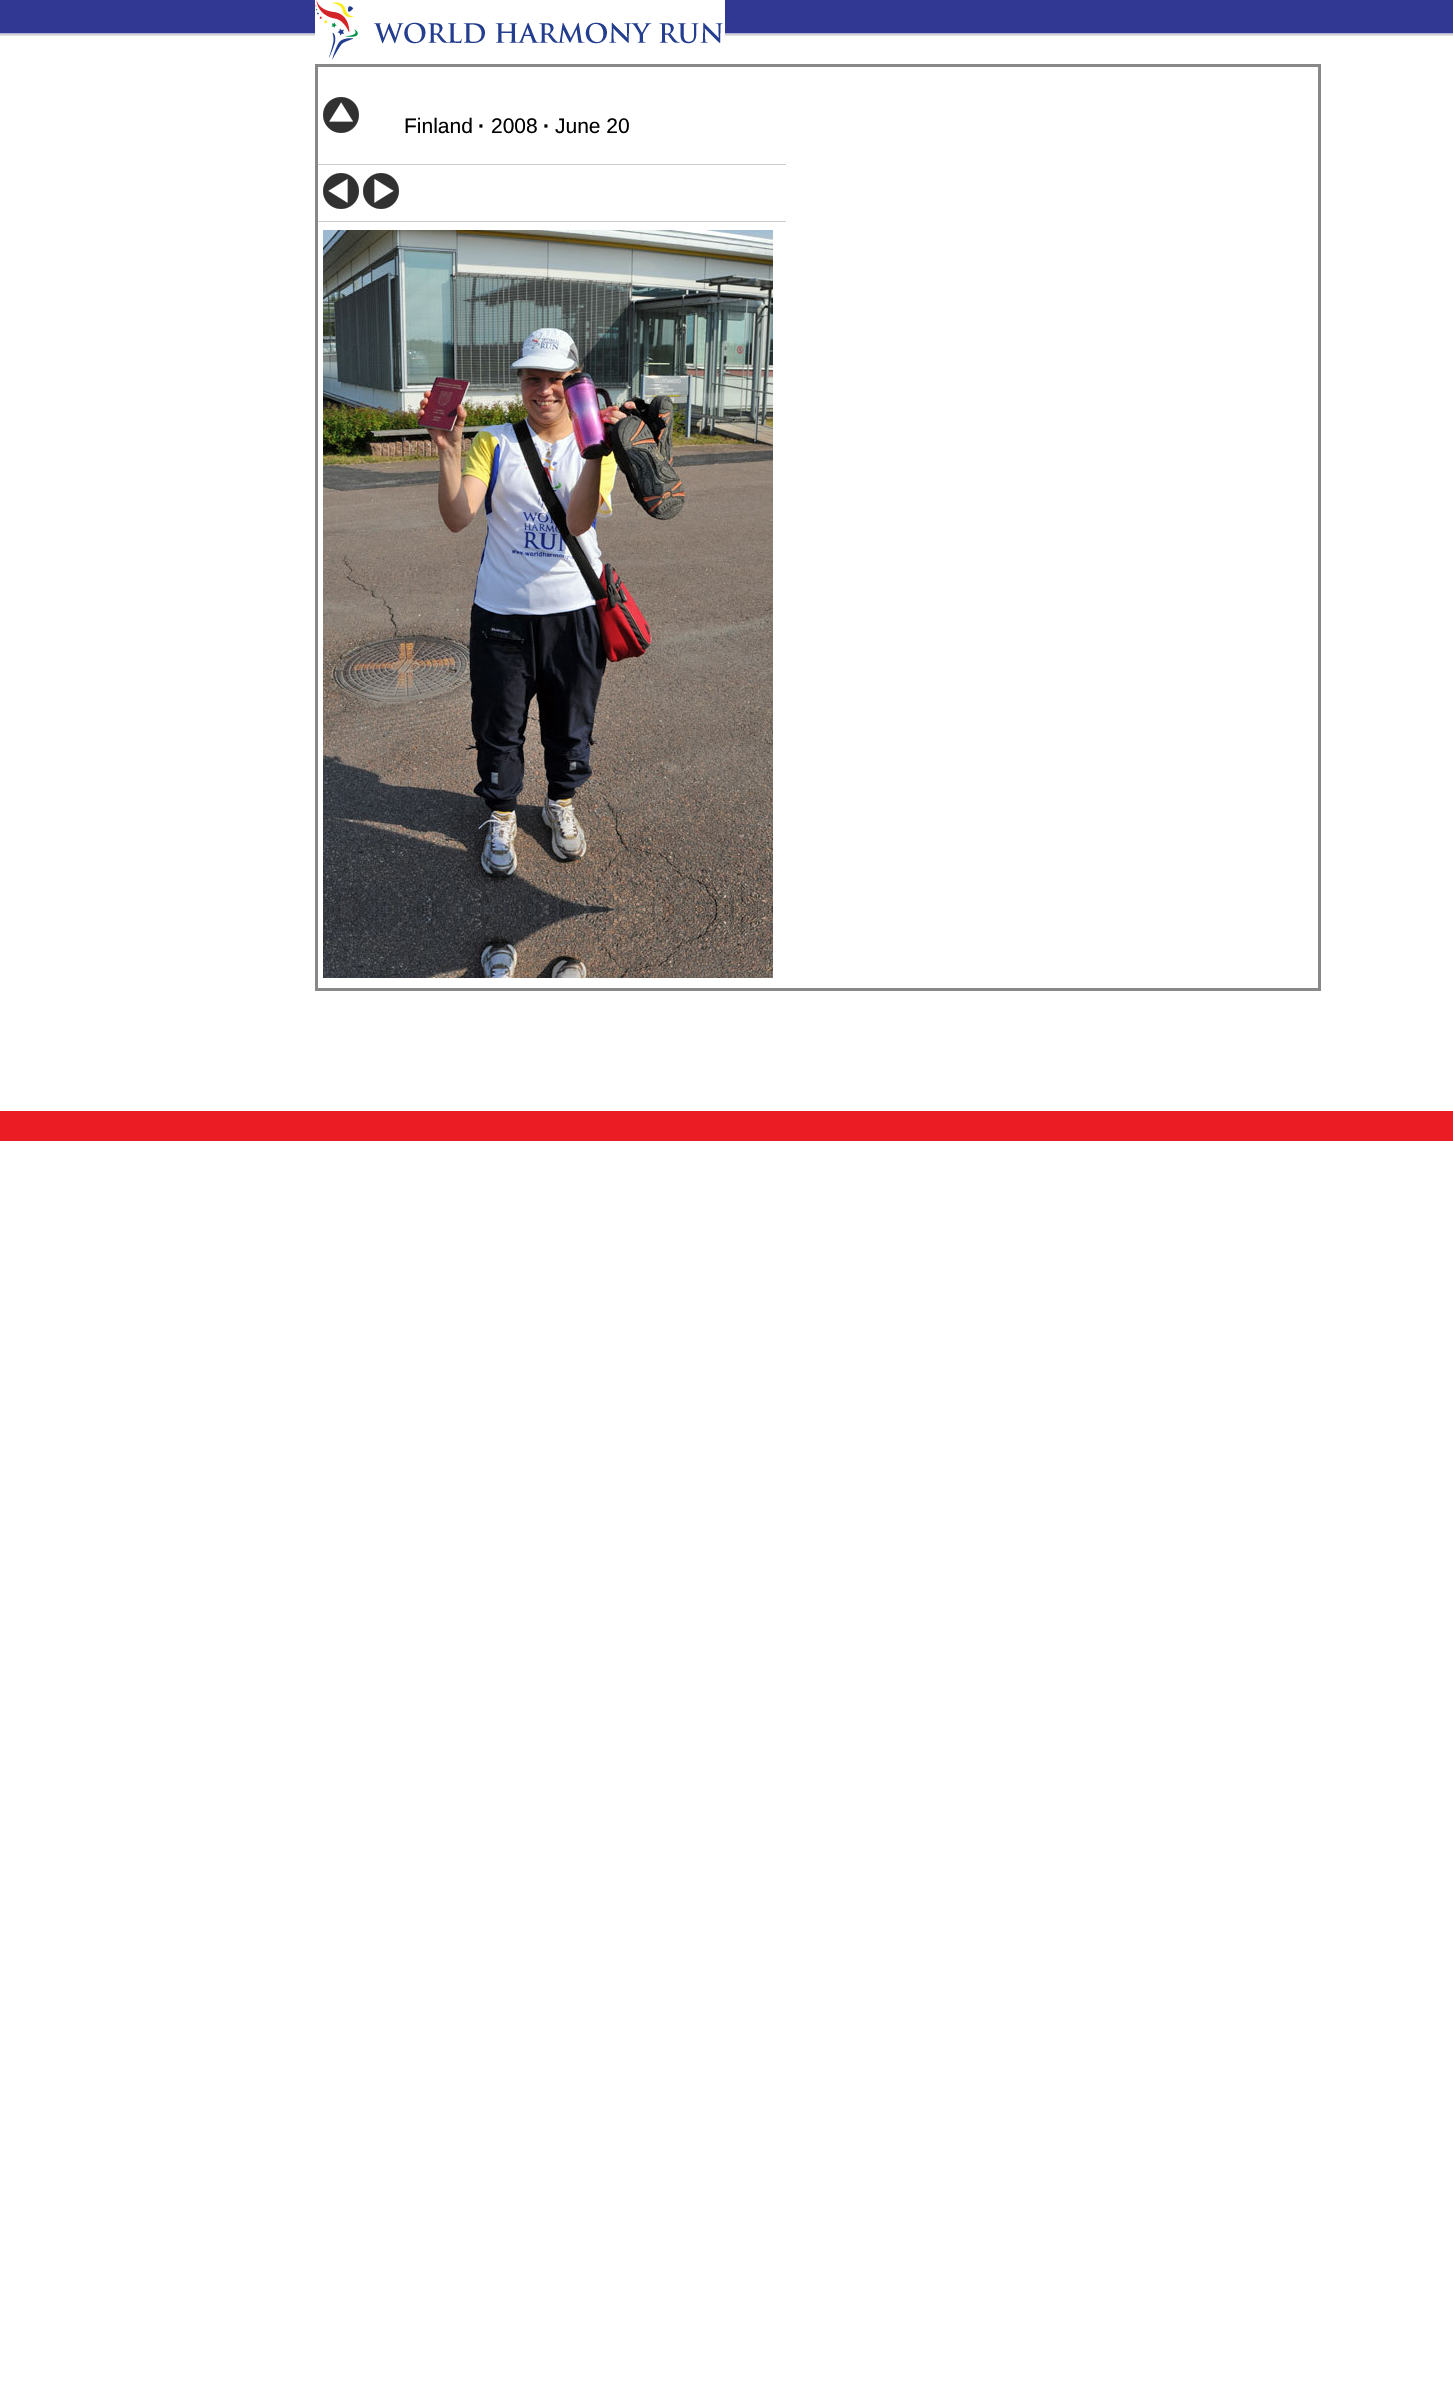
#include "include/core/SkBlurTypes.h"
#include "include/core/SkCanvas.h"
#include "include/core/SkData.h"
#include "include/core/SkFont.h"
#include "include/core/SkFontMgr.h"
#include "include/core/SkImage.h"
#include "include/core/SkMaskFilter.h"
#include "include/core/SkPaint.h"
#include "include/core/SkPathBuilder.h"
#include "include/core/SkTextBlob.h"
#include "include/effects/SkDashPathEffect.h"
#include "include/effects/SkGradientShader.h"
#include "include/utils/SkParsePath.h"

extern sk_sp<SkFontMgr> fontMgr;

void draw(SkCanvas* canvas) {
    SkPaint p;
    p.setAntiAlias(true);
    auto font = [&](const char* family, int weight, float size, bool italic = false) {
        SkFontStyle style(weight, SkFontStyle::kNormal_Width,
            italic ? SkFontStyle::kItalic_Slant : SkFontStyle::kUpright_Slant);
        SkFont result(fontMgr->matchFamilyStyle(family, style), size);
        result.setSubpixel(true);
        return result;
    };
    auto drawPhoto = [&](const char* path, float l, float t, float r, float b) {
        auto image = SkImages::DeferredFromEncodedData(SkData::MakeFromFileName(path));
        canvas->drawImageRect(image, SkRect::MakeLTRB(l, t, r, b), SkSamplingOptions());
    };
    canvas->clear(0xFFFFFFFF);
    drawPhoto("media/1.png", 0, 0, 1453, 36);
    drawPhoto("media/2.png", 315, 0, 725, 60);
    p.setStyle(SkPaint::kStroke_Style);
    p.setStrokeWidth(3);
    p.setColor(0xFF888888);
    canvas->drawRect(SkRect::MakeLTRB(316.5f, 65.5f, 1319.5f, 989.5f), p);
    drawPhoto("media/3.png", 323, 97, 359, 133);
    auto font1 = font("Liberation Sans", 400, 21);
    p.setStyle(SkPaint::kFill_Style);
    p.setColor(0xFF000000);
    canvas->drawString("Finland", 404, 133, font1, p);
    auto font2 = font("Liberation Sans", 700, 21);
    canvas->drawString("·", 478, 133, font2, p);
    canvas->drawString("2008", 491, 133, font1, p);
    canvas->drawString("·", 543, 133, font2, p);
    canvas->drawString("June 20", 555, 133, font1, p);
    p.setColor(0xFFCCCCCC);
    canvas->drawRect(SkRect::MakeLTRB(318, 164, 786, 165), p);
    drawPhoto("media/4.png", 323, 173, 359, 209);
    drawPhoto("media/5.png", 363, 173, 399, 209);
    canvas->drawRect(SkRect::MakeLTRB(318, 221, 786, 222), p);
    drawPhoto("media/6.png", 323, 230, 773, 910);
    drawPhoto("media/7.png", 323, 910, 773, 978);
    p.setColor(0xFFEB1C24);
    canvas->drawRect(SkRect::MakeLTRB(0, 1111, 1453, 1141), p);
}
